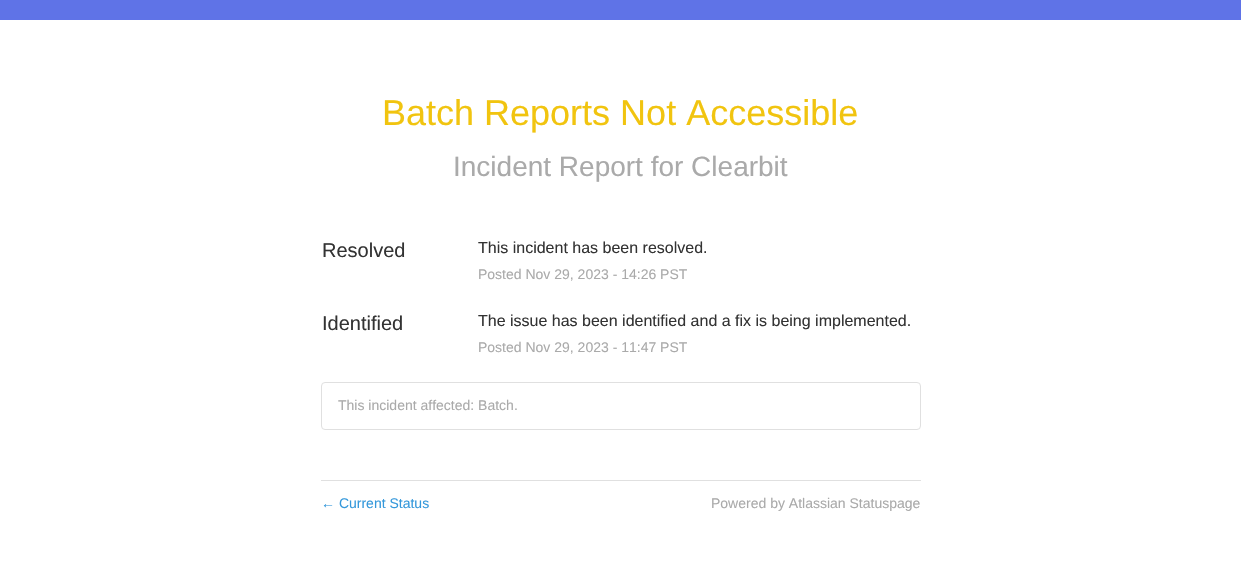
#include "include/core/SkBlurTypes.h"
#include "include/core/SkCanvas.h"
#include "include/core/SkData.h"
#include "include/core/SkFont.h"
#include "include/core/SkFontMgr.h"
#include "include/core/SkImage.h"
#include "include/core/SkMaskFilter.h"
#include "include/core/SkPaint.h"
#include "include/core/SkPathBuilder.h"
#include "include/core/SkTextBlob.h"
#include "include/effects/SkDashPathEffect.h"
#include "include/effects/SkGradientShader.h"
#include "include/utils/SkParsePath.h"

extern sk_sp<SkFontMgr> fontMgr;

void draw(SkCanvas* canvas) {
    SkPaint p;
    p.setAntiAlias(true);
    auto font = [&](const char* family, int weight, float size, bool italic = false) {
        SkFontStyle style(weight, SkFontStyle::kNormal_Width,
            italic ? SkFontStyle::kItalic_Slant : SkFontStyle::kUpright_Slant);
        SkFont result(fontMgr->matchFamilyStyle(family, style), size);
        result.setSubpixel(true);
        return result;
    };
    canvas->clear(0xFFFFFFFF);
    p.setColor(0xFF5F73E7);
    canvas->drawRect(SkRect::MakeLTRB(0, 0, 1241, 20), p);
    auto font1 = font("Liberation Sans", 400, 36);
    p.setColor(0xFFF1C40F);
    canvas->drawString("Batch Reports Not Accessible", 382, 125, font1, p);
    auto font2 = font("Liberation Sans", 400, 28);
    p.setColor(0xFFAAAAAA);
    canvas->drawString("Incident Report for Clearbit", 453, 176, font2, p);
    auto font3 = font("Liberation Sans", 400, 20);
    p.setColor(0xFF333333);
    canvas->drawString("Resolved", 322, 257, font3, p);
    auto font4 = font("Liberation Sans", 400, 16);
    canvas->drawString("This incident has been resolved.", 478, 253, font4, p);
    auto font5 = font("Liberation Sans", 400, 14);
    p.setColor(0xFFAAAAAA);
    canvas->drawString("Posted Nov 29, 2023 - 14:26 PST", 478, 279, font5, p);
    p.setColor(0xFF333333);
    canvas->drawString("Identified", 322, 330, font3, p);
    canvas->drawString("The issue has been identified and a fix is being implemented.", 478, 326, font4, p);
    p.setColor(0xFFAAAAAA);
    canvas->drawString("Posted Nov 29, 2023 - 11:47 PST", 478, 352, font5, p);
    p.setStyle(SkPaint::kStroke_Style);
    p.setStrokeWidth(1);
    p.setColor(0xFFE0E0E0);
    canvas->drawRoundRect(SkRect::MakeLTRB(321.5f, 382.5f, 920.5f, 429.5f), 3.5f, 3.5f, p);
    p.setStyle(SkPaint::kFill_Style);
    p.setColor(0xFFAAAAAA);
    canvas->drawString("This incident affected: Batch.", 338, 410, font5, p);
    p.setColor(0xFFE0E0E0);
    canvas->drawRect(SkRect::MakeLTRB(321, 480, 921, 481), p);
    p.setColor(0xFF3498DB);
    canvas->drawString("← Current Status", 321, 508, font5, p);
    p.setColor(0xFFAAAAAA);
    canvas->drawString("Powered by Atlassian Statuspage", 711, 508, font5, p);
}
